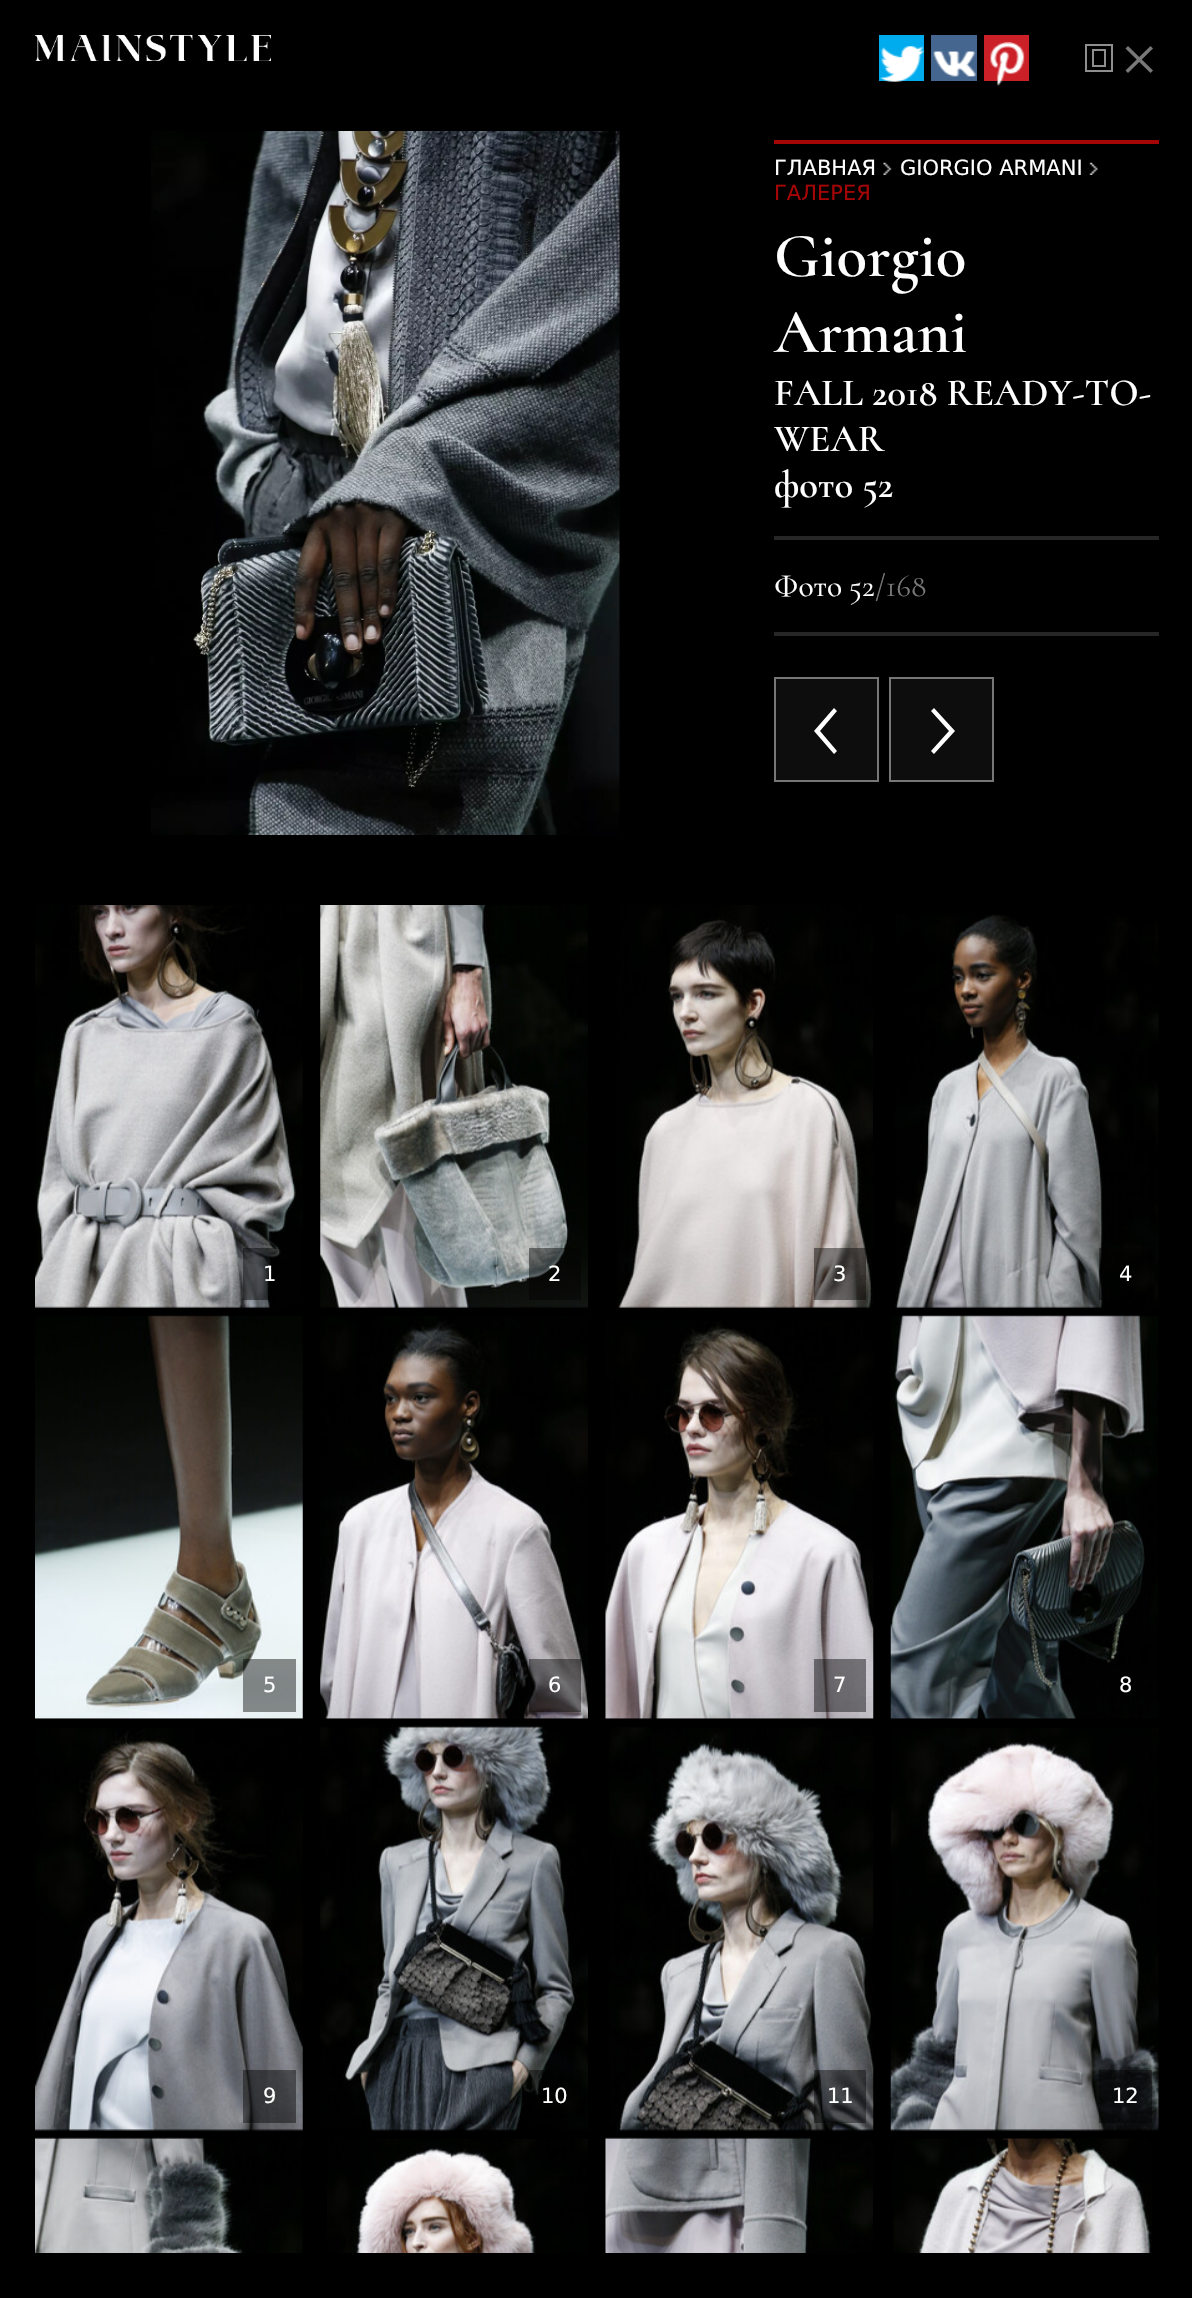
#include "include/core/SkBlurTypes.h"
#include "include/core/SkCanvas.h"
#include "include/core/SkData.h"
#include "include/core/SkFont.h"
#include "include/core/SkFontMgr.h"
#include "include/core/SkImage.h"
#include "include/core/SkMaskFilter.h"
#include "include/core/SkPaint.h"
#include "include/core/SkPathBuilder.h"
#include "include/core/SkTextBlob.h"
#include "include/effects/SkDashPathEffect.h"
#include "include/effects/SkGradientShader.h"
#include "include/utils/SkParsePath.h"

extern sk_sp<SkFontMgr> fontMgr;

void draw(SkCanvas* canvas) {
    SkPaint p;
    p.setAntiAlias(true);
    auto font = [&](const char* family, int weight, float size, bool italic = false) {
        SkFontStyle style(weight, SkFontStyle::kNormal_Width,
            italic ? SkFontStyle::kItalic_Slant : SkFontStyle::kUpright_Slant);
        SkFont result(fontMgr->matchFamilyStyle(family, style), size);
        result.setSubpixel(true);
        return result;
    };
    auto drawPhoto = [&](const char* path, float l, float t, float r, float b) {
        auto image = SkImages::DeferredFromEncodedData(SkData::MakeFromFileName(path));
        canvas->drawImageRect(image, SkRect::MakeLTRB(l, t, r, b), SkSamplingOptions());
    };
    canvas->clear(0xFF000000);
    p.setColor(0xFF00ACED);
    canvas->drawRect(SkRect::MakeLTRB(879, 35, 924, 81), p);
    drawPhoto("media/1.png", 879, 46, 925, 82);
    p.setColor(0xFF45668E);
    canvas->drawRect(SkRect::MakeLTRB(931, 35, 977, 81), p);
    drawPhoto("media/2.png", 933, 51, 976, 77);
    p.setColor(0xFFCB2027);
    canvas->drawRect(SkRect::MakeLTRB(984, 35, 1029, 81), p);
    drawPhoto("media/3.png", 990, 42, 1025, 86);
    p.setStyle(SkPaint::kStroke_Style);
    p.setStrokeWidth(2);
    p.setColor(0xFF8E8E8E);
    canvas->drawRect(SkRect::MakeLTRB(1086, 45, 1112, 71), p);
    canvas->drawRect(SkRect::MakeLTRB(1093, 50, 1105, 66), p);
    p.setStyle(SkPaint::kFill_Style);
    p.setColor(0xFF787878);
    canvas->drawPath(SkPathBuilder().moveTo(1128, 46).lineTo(1153, 70.5f).lineTo(1150.5f, 73).lineTo(1125.5f, 48.5f).close().detach(), p);
    canvas->drawPath(SkPathBuilder().moveTo(1125.5f, 70.5f).lineTo(1150.5f, 46).lineTo(1153, 48.5f).lineTo(1128, 73).close().detach(), p);
    drawPhoto("media/4.png", 35, 35, 271, 61);
    drawPhoto("media/5.png", 151, 131, 620, 835);
    p.setColor(0xFFA60505);
    canvas->drawRect(SkRect::MakeLTRB(774, 140, 1159, 144), p);
    auto font1 = font("DejaVu Sans", 400, 21);
    p.setColor(0xFFFFFFFF);
    canvas->drawString("ГЛАВНАЯ", 774, 175, font1, p);
    drawPhoto("media/6.png", 883, 162, 892, 175);
    canvas->drawString("GIORGIO ARMANI", 900, 175, font1, p);
    drawPhoto("media/7.png", 1089, 162, 1098, 175);
    p.setColor(0xFFA60505);
    canvas->drawString("ГАЛЕРЕЯ", 774, 200, font1, p);
    auto font2 = font("Cormorant Garamond", 600, 63);
    p.setColor(0xFFFFFFFF);
    canvas->drawString("Giorgio", 774, 276, font2, p);
    canvas->drawString("Armani", 774, 352, font2, p);
    auto font3 = font("Cormorant Garamond", 600, 38.5f);
    {
        const struct { const char* s; float x, y; } items[] = {
            {"FALL 2018 READY-TO-", 774, 405},
            {"WEAR", 774, 451},
            {"фото 52", 774, 497},
        };
        for (auto [s, x, y] : items) {
            canvas->drawString(s, x, y, font3, p);
        }
    }
    p.setColor(0xFF262626);
    canvas->drawRect(SkRect::MakeLTRB(774, 536, 1159, 540), p);
    canvas->drawRect(SkRect::MakeLTRB(774, 632, 1159, 636), p);
    auto font4 = font("Cormorant Garamond", 500, 31.5f);
    p.setColor(0xFFFFFFFF);
    canvas->drawString("Фото", 774, 596, font4, p);
    auto font5 = font("Cormorant Garamond", 400, 31.5f);
    canvas->drawString("52", 849, 596, font5, p);
    p.setColor(0xFF777777);
    canvas->drawString("/168", 875, 596, font5, p);
    p.setColor(0xFF0D0D0D);
    canvas->drawRect(SkRect::MakeLTRB(775, 678, 878, 781), p);
    p.setStyle(SkPaint::kStroke_Style);
    p.setColor(0xFF777777);
    canvas->drawRect(SkRect::MakeLTRB(775, 678, 878, 781), p);
    p.setStyle(SkPaint::kFill_Style);
    p.setColor(0xFFFFFFFF);
    canvas->drawPath(SkPathBuilder().moveTo(834, 754).lineTo(814, 731).lineTo(834, 708).lineTo(837, 711).lineTo(820, 731).lineTo(837, 751).close().detach(), p);
    p.setColor(0xFF0D0D0D);
    canvas->drawRect(SkRect::MakeLTRB(890, 678, 993, 781), p);
    p.setStyle(SkPaint::kStroke_Style);
    p.setColor(0xFF777777);
    canvas->drawRect(SkRect::MakeLTRB(890, 678, 993, 781), p);
    p.setStyle(SkPaint::kFill_Style);
    p.setColor(0xFFFFFFFF);
    canvas->drawPath(SkPathBuilder().moveTo(934, 754).lineTo(955, 731).lineTo(934, 708).lineTo(931, 711).lineTo(949, 731).lineTo(931, 751).close().detach(), p);
    drawPhoto("media/8.png", 35, 905, 303, 1308);
    p.setColor(0x70000000);
    canvas->drawRect(SkRect::MakeLTRB(243, 1248, 284, 1300), p);
    p.setColor(0xFFFFFFFF);
    canvas->drawString("1", 263, 1281, font1, p);
    drawPhoto("media/9.png", 320, 905, 588, 1308);
    p.setColor(0x70000000);
    canvas->drawRect(SkRect::MakeLTRB(529, 1248, 581, 1300), p);
    p.setColor(0xFFFFFFFF);
    canvas->drawString("2", 548, 1281, font1, p);
    drawPhoto("media/10.png", 617, 905, 873, 1308);
    p.setColor(0x70000000);
    canvas->drawRect(SkRect::MakeLTRB(814, 1248, 866, 1300), p);
    p.setColor(0xFFFFFFFF);
    canvas->drawString("3", 833, 1281, font1, p);
    drawPhoto("media/11.png", 895, 914, 1159, 1308);
    p.setColor(0x70000000);
    canvas->drawRect(SkRect::MakeLTRB(1099, 1248, 1152, 1300), p);
    p.setColor(0xFFFFFFFF);
    canvas->drawString("4", 1119, 1281, font1, p);
    drawPhoto("media/12.png", 35, 1315, 303, 1719);
    p.setColor(0x70000000);
    canvas->drawRect(SkRect::MakeLTRB(243, 1659, 296, 1712), p);
    p.setColor(0xFFFFFFFF);
    canvas->drawString("5", 263, 1692, font1, p);
    drawPhoto("media/13.png", 320, 1316, 588, 1719);
    p.setColor(0x70000000);
    canvas->drawRect(SkRect::MakeLTRB(529, 1659, 581, 1712), p);
    p.setColor(0xFFFFFFFF);
    canvas->drawString("6", 548, 1692, font1, p);
    drawPhoto("media/14.png", 605, 1321, 874, 1719);
    p.setColor(0x70000000);
    canvas->drawRect(SkRect::MakeLTRB(814, 1659, 866, 1712), p);
    p.setColor(0xFFFFFFFF);
    canvas->drawString("7", 833, 1692, font1, p);
    drawPhoto("media/15.png", 890, 1315, 1158, 1719);
    p.setColor(0x70000000);
    canvas->drawRect(SkRect::MakeLTRB(1101, 1659, 1114, 1664), p);
    p.setColor(0xFFFFFFFF);
    canvas->drawString("8", 1119, 1692, font1, p);
    drawPhoto("media/16.png", 35, 1728, 303, 2131);
    p.setColor(0x70000000);
    canvas->drawRect(SkRect::MakeLTRB(243, 2070, 296, 2123), p);
    p.setColor(0xFFFFFFFF);
    canvas->drawString("9", 263, 2103, font1, p);
    drawPhoto("media/17.png", 320, 1726, 588, 2131);
    p.setColor(0x70000000);
    canvas->drawRect(SkRect::MakeLTRB(529, 2070, 581, 2109), p);
    p.setColor(0xFFFFFFFF);
    canvas->drawString("10", 541, 2103, font1, p);
    drawPhoto("media/18.png", 609, 1727, 874, 2131);
    p.setColor(0x70000000);
    canvas->drawRect(SkRect::MakeLTRB(814, 2070, 866, 2123), p);
    p.setColor(0xFFFFFFFF);
    canvas->drawString("11", 827, 2103, font1, p);
    drawPhoto("media/19.png", 890, 1728, 1159, 2131);
    p.setColor(0x70000000);
    canvas->drawRect(SkRect::MakeLTRB(1099, 2070, 1152, 2123), p);
    p.setColor(0xFFFFFFFF);
    canvas->drawString("12", 1112, 2103, font1, p);
    drawPhoto("media/20.png", 35, 2137, 303, 2253);
    drawPhoto("media/21.png", 327, 2139, 588, 2253);
    drawPhoto("media/22.png", 605, 2137, 873, 2253);
    drawPhoto("media/23.png", 893, 2137, 1152, 2253);
}
